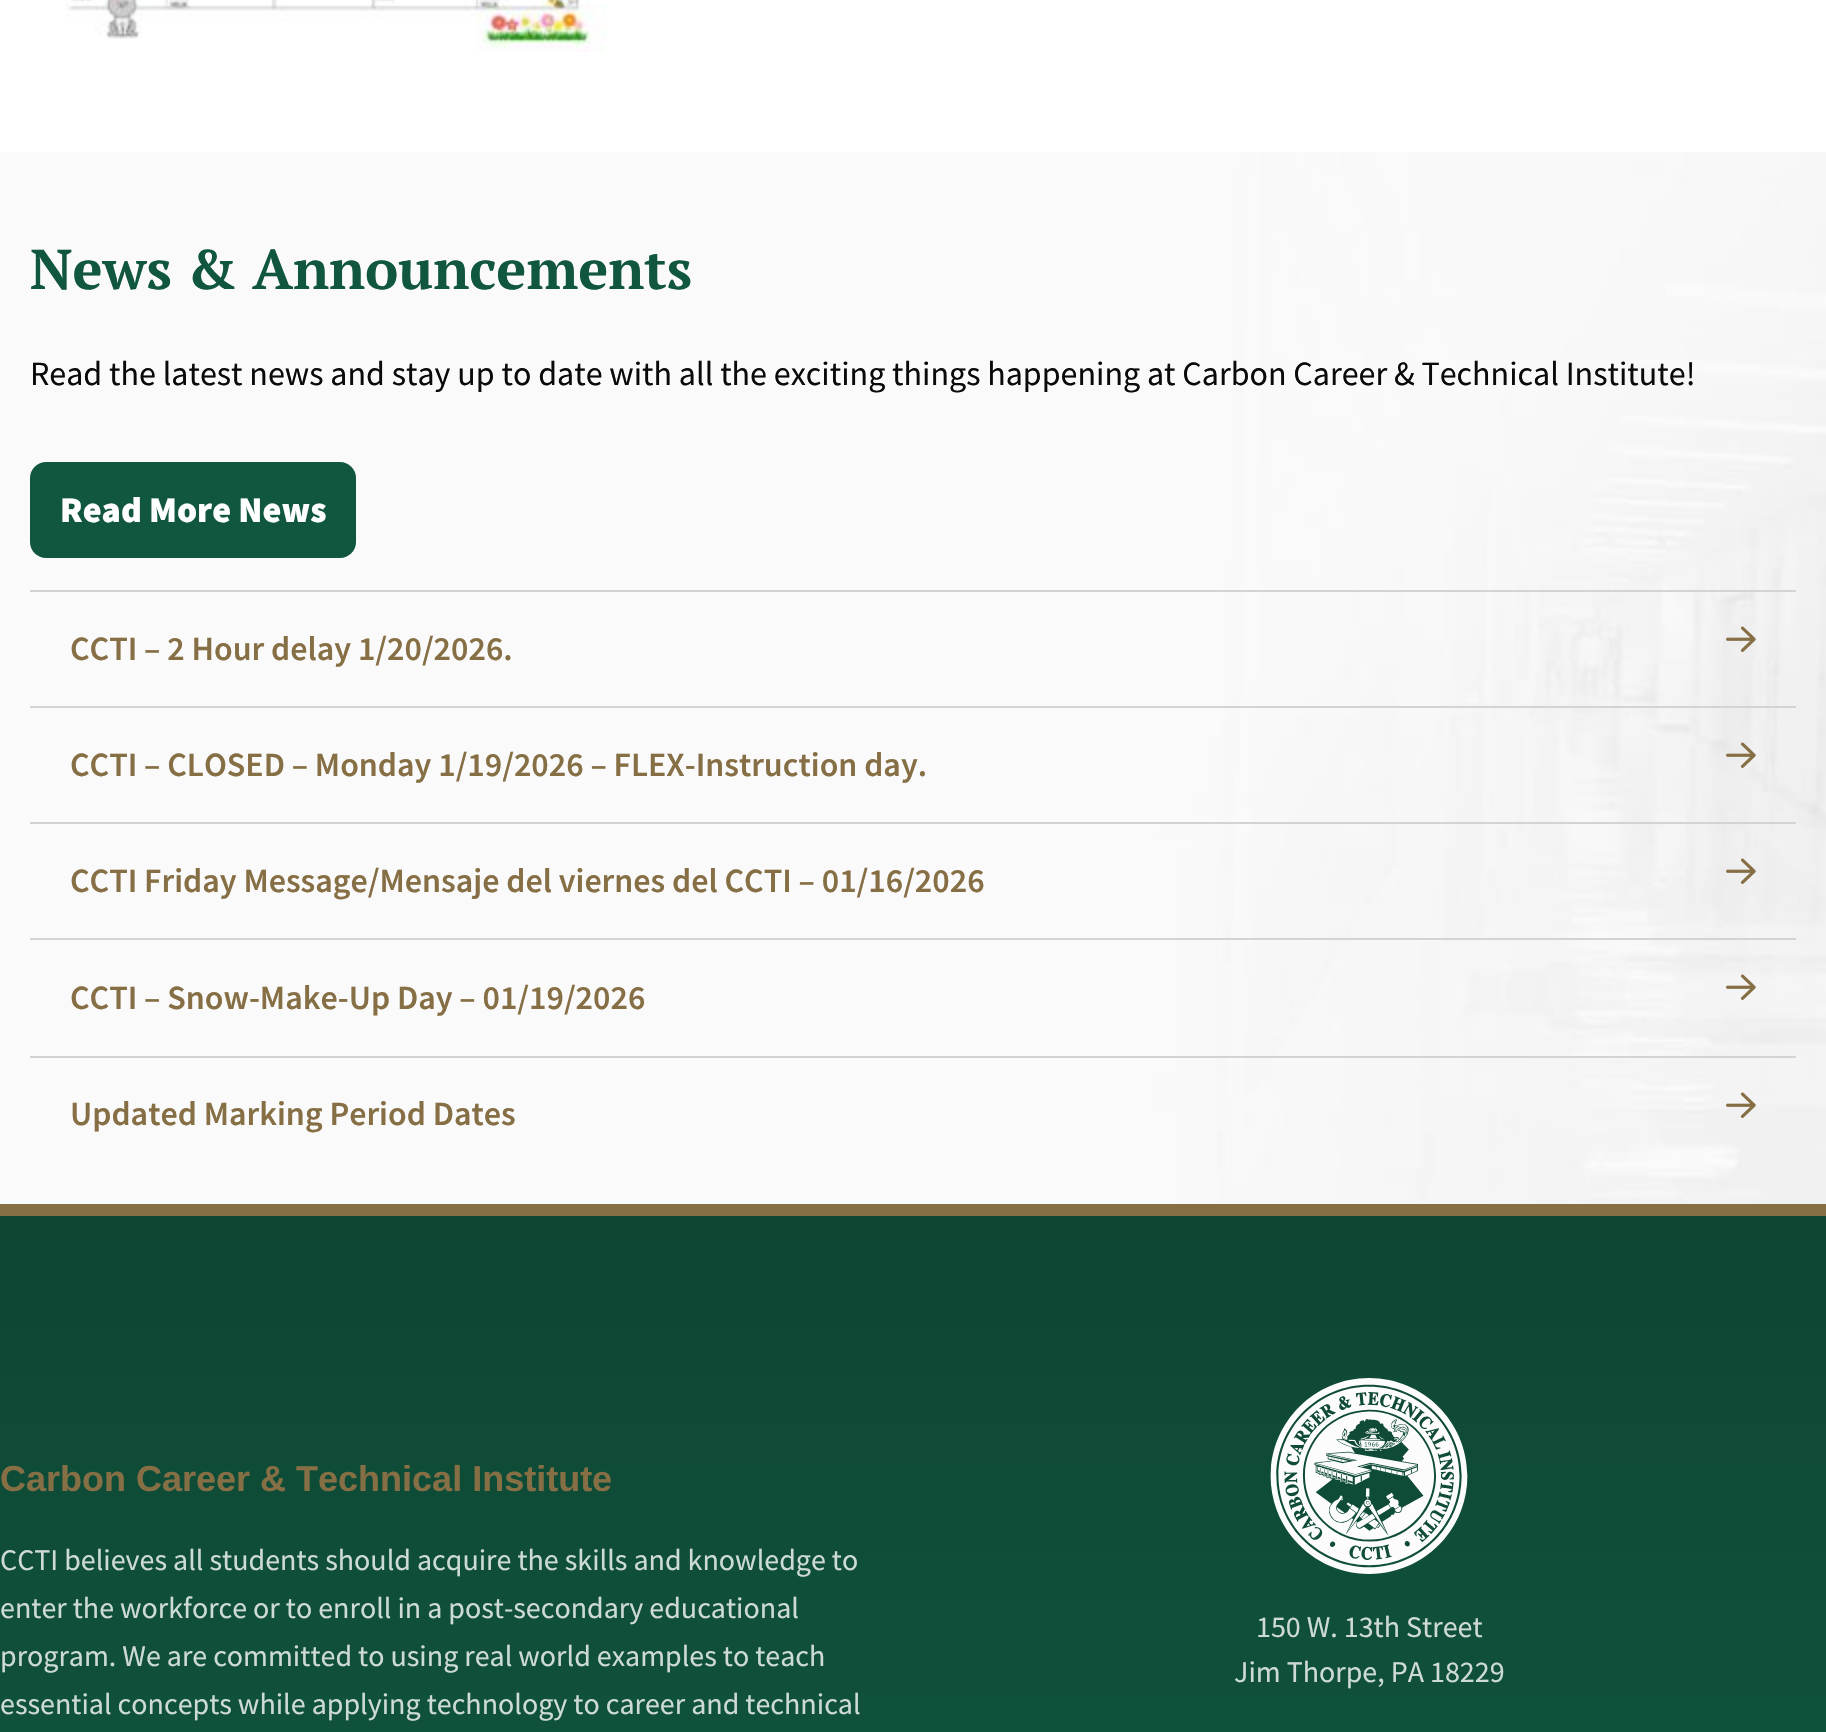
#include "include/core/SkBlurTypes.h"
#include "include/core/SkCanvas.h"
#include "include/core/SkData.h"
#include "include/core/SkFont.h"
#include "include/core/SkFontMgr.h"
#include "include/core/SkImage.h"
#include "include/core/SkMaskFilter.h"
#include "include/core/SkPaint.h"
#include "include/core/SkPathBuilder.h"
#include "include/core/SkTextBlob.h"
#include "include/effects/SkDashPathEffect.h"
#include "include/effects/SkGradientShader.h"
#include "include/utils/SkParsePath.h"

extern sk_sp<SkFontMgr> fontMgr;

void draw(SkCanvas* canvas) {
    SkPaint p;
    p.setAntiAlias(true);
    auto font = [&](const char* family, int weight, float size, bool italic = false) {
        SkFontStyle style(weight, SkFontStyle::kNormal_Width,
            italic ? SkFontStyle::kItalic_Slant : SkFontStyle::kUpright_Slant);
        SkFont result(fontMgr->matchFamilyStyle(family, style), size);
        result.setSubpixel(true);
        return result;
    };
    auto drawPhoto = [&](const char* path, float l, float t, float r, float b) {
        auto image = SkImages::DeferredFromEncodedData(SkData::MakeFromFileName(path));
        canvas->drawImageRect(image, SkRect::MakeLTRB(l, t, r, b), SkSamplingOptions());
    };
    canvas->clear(0xFFFFFFFF);
    drawPhoto("media/1.png", 66, 0, 607, 52);
    drawPhoto("media/2.png", 0, 152, 1826, 1204);
    auto font1 = font("PT Serif", 700, 56);
    p.setColor(0xFF115740);
    canvas->drawString("News & Announcements", 30, 289, font1, p);
    auto font2 = font("Source Sans Pro", 400, 34);
    p.setColor(0xFF0A0A0A);
    canvas->drawString("Read the latest news and stay up to date with all the exciting things happening at Carbon Career & Technical Institute!", 30, 385, font2, p);
    p.setColor(0xFF115740);
    canvas->drawRoundRect(SkRect::MakeLTRB(30, 462, 356, 558), 16, 16, p);
    auto font3 = font("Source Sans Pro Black", 900, 36);
    p.setColor(0xFFFFFFFF);
    canvas->drawString("Read More News", 60, 522, font3, p);
    p.setColor(0xFFD3D3D3);
    canvas->drawRect(SkRect::MakeLTRB(30, 590, 1796, 592), p);
    auto font4 = font("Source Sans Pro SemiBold", 600, 34);
    p.setColor(0xFF866F45);
    canvas->drawString("CCTI – 2 Hour delay 1/20/2026.", 70, 660, font4, p);
    drawPhoto("media/3.png", 1726, 626, 1756, 652);
    p.setColor(0xFFD3D3D3);
    canvas->drawRect(SkRect::MakeLTRB(30, 706, 1796, 708), p);
    p.setColor(0xFF866F45);
    canvas->drawString("CCTI – CLOSED – Monday 1/19/2026 – FLEX-Instruction day.", 70, 776, font4, p);
    drawPhoto("media/4.png", 1726, 742, 1756, 768);
    p.setColor(0xFFD3D3D3);
    canvas->drawRect(SkRect::MakeLTRB(30, 822, 1796, 824), p);
    p.setColor(0xFF866F45);
    canvas->drawString("CCTI Friday Message/Mensaje del viernes del CCTI – 01/16/2026", 70, 892, font4, p);
    drawPhoto("media/5.png", 1726, 858, 1756, 884);
    p.setColor(0xFFD3D3D3);
    canvas->drawRect(SkRect::MakeLTRB(30, 938, 1796, 940), p);
    p.setColor(0xFF866F45);
    canvas->drawString("CCTI – Snow-Make-Up Day – 01/19/2026", 70, 1009, font4, p);
    drawPhoto("media/6.png", 1726, 974, 1756, 1000);
    p.setColor(0xFFD3D3D3);
    canvas->drawRect(SkRect::MakeLTRB(30, 1056, 1796, 1058), p);
    p.setColor(0xFF866F45);
    canvas->drawString("Updated Marking Period Dates", 70, 1125, font4, p);
    drawPhoto("media/7.png", 1726, 1092, 1756, 1118);
    {
        const SkColor colors[] = {0xFF115740, 0xFF0E4633};
        const float stops[] = {0, 1};
        const SkPoint ends[] = {{913, 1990}, {913, 1216}};
        p.setShader(SkGradientShader::MakeLinear(ends, colors, stops, 2, SkTileMode::kClamp));
        p.setAlpha(255);
    }
    canvas->drawRect(SkRect::MakeLTRB(0, 1216, 1826, 1732), p);
    p.setShader(nullptr);
    p.setColor(0xFF866F45);
    canvas->drawRect(SkRect::MakeLTRB(0, 1204, 1826, 1216), p);
    auto font5 = font("Liberation Sans", 700, 36);
    canvas->drawString("Carbon Career & Technical Institute", 0, 1491, font5, p);
    auto font6 = font("Source Sans Pro", 400, 30);
    p.setColor(0xFFCDDAD6);
    {
        const struct { const char* s; float x, y; } items[] = {
            {"CCTI believes all students should acquire the skills and knowledge to", 0, 1570},
            {"enter the workforce or to enroll in a post-secondary educational", 0, 1618},
            {"program. We are committed to using real world examples to teach", 0, 1666},
            {"essential concepts while applying technology to career and technical", 0, 1714},
        };
        for (auto [s, x, y] : items) {
            canvas->drawString(s, x, y, font6, p);
        }
    }
    drawPhoto("media/8.png", 1270, 1378, 1468, 1574);
    canvas->drawString("150 W. 13th Street", 1256, 1637, font6, p);
    canvas->drawString("Jim Thorpe, PA 18229", 1234, 1682, font6, p);
}
